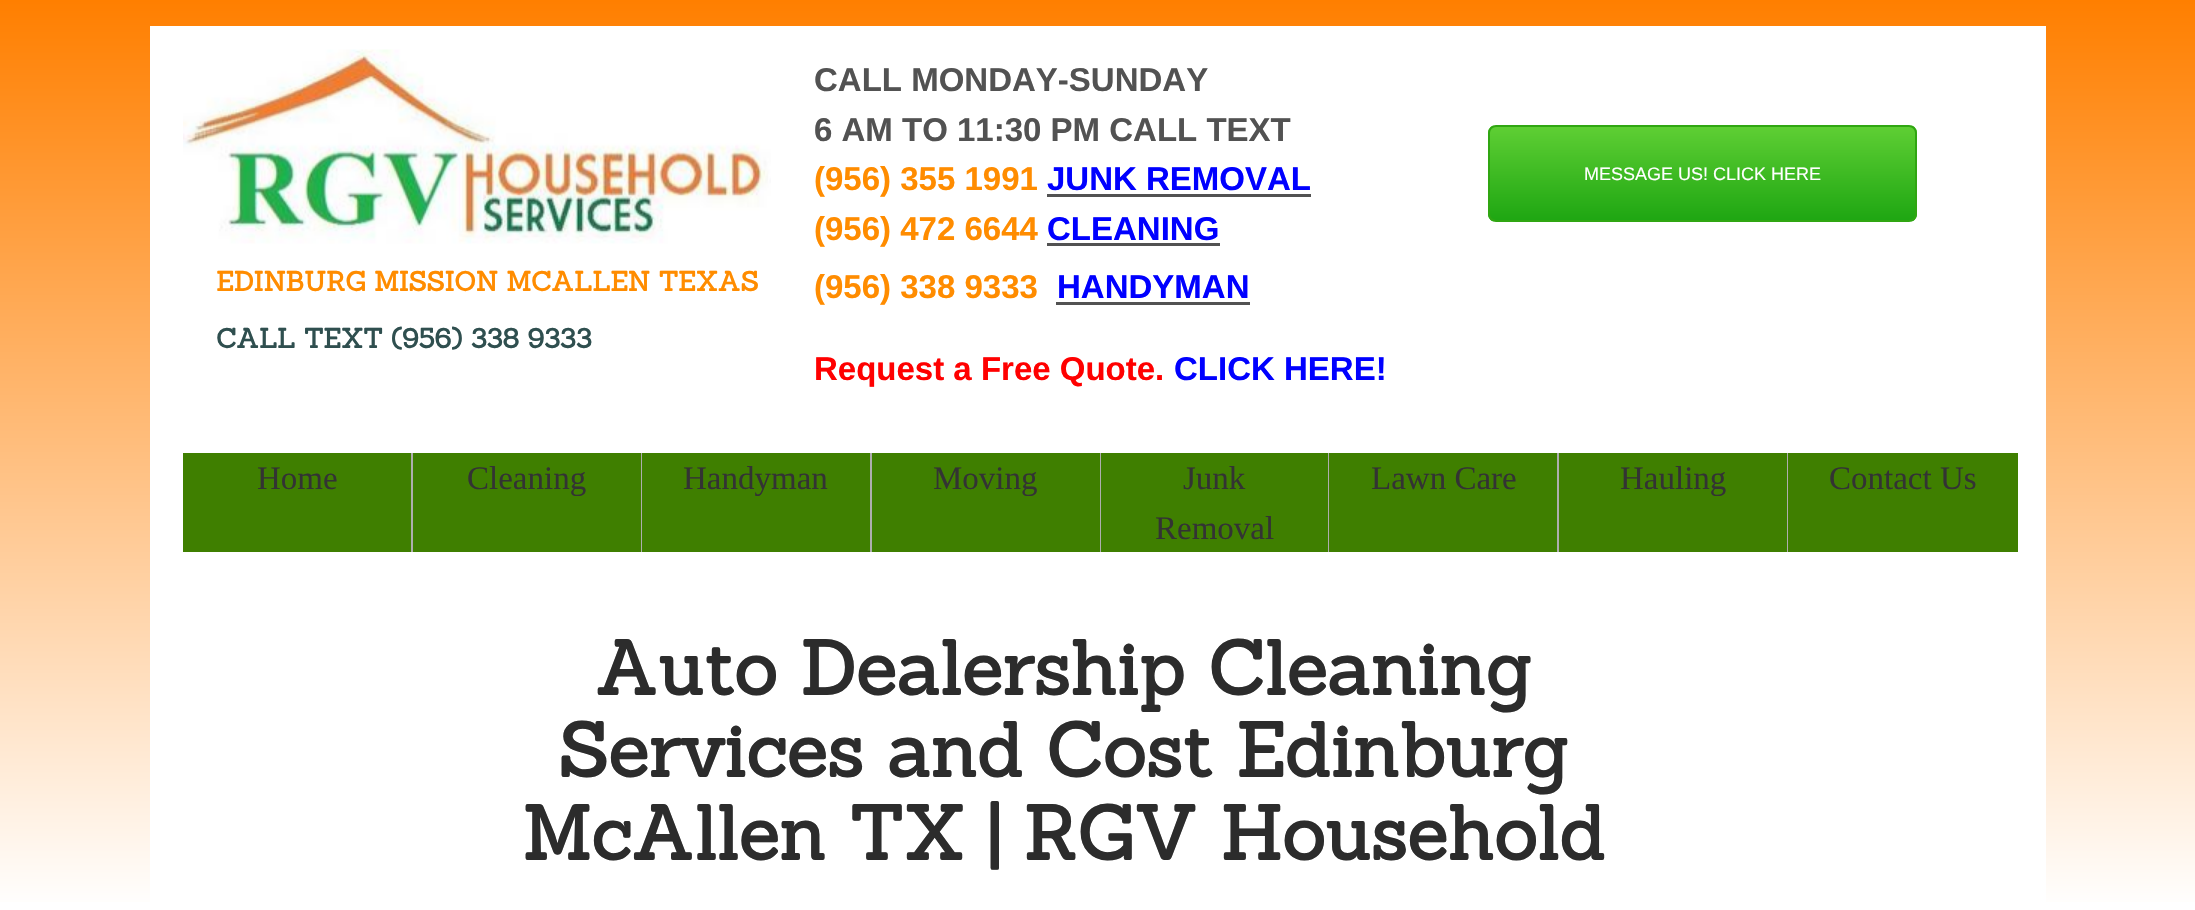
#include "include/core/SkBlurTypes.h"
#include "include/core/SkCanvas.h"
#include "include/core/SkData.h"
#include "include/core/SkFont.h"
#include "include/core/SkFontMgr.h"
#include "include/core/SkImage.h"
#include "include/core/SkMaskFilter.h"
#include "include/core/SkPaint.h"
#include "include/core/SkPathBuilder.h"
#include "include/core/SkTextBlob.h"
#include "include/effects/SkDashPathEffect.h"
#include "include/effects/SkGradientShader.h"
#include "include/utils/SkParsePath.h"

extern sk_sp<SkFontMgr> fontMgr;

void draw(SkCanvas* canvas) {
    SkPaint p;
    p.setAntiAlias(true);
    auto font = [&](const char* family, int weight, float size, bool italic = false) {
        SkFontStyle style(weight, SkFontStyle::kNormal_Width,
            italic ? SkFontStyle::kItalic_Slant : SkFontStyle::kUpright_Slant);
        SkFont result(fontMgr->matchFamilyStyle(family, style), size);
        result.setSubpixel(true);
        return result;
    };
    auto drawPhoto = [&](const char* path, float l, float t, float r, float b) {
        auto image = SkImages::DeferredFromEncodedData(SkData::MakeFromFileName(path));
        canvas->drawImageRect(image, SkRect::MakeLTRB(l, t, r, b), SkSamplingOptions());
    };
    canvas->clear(0xFFFFFFFF);
    {
        const SkColor colors[] = {0xFFFF7F00, 0xFFFFFFFF};
        const float stops[] = {0, 1};
        const SkPoint ends[] = {{1098, 0}, {1098, 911}};
        p.setShader(SkGradientShader::MakeLinear(ends, colors, stops, 2, SkTileMode::kClamp));
        p.setAlpha(255);
    }
    canvas->drawRect(SkRect::MakeLTRB(0, 0, 2195, 902), p);
    p.setShader(nullptr);
    p.setColor(0xFFFFFFFF);
    canvas->drawRect(SkRect::MakeLTRB(150, 26, 2046, 902), p);
    drawPhoto("media/1.png", 183, 49, 771, 244);
    auto font1 = font("Liberation Sans", 700, 33);
    p.setColor(0xFF525252);
    canvas->drawString("CALL MONDAY-SUNDAY", 814, 91, font1, p);
    canvas->drawString("6 AM TO 11:30 PM CALL TEXT", 814, 141, font1, p);
    p.setColor(0xFFFF8C00);
    canvas->drawString("(956) 355 1991", 814, 190, font1, p);
    p.setColor(0xFF0000FF);
    canvas->drawString("JUNK REMOVAL", 1047, 190, font1, p);
    p.setColor(0xFF525252);
    canvas->drawRect(SkRect::MakeLTRB(1047, 194, 1311, 197), p);
    p.setColor(0xFFFF8C00);
    canvas->drawString("(956) 472 6644", 814, 240, font1, p);
    p.setColor(0xFF0000FF);
    canvas->drawString("CLEANING", 1047, 240, font1, p);
    p.setColor(0xFF525252);
    canvas->drawRect(SkRect::MakeLTRB(1047, 243, 1220, 246), p);
    p.setColor(0xFFFF8C00);
    canvas->drawString("(956) 338 9333", 814, 298, font1, p);
    p.setColor(0xFF0000FF);
    canvas->drawString("HANDYMAN", 1057, 298, font1, p);
    p.setColor(0xFF525252);
    canvas->drawRect(SkRect::MakeLTRB(1056, 302, 1250, 305), p);
    canvas->save();
    canvas->clipPath(SkPathBuilder().moveTo(1496, 125).lineTo(1909, 125).cubicTo(1913.5f, 125, 1917, 128.5f, 1917, 133).lineTo(1917, 214).cubicTo(1917, 218.5f, 1913.5f, 222, 1909, 222).lineTo(1496, 222).cubicTo(1491.5f, 222, 1488, 218.5f, 1488, 214).lineTo(1488, 133).cubicTo(1488, 128.5f, 1491.5f, 125, 1496, 125).close().detach(), true);
    {
        const SkColor colors[] = {0xFF5FCF34, 0xFF1EA612};
        const float stops[] = {0, 1};
        const SkPoint ends[] = {{1703, 126}, {1703, 221}};
        p.setShader(SkGradientShader::MakeLinear(ends, colors, stops, 2, SkTileMode::kClamp));
        p.setAlpha(255);
    }
    canvas->drawRect(SkRect::MakeLTRB(1488, 126, 1917, 221), p);
    canvas->restore();
    p.setStyle(SkPaint::kStroke_Style);
    p.setStrokeWidth(2);
    p.setShader(nullptr);
    p.setColor(0xFF30A612);
    canvas->drawRoundRect(SkRect::MakeLTRB(1489, 126, 1916, 221), 7, 7, p);
    auto font2 = font("Liberation Sans", 400, 18);
    p.setStyle(SkPaint::kFill_Style);
    p.setColor(0xFFFFFFFF);
    canvas->drawString("MESSAGE US! CLICK HERE", 1584, 180, font2, p);
    auto font3 = font("Sanchez", 700, 27);
    p.setColor(0xFFFF8C00);
    canvas->drawString("EDINBURG MISSION MCALLEN TEXAS", 216, 291, font3, p);
    p.setColor(0xFF2F4F4F);
    canvas->drawString("CALL TEXT (956) 338 9333", 216, 348, font3, p);
    p.setColor(0xFFFF0000);
    canvas->drawString("Request a Free Quote.", 814, 380, font1, p);
    p.setColor(0xFF0000FF);
    canvas->drawString("CLICK HERE!", 1174, 380, font1, p);
    p.setColor(0xFF3F7F00);
    canvas->drawRect(SkRect::MakeLTRB(183, 453, 411, 552), p);
    p.setColor(0xFFAEAEAE);
    canvas->drawRect(SkRect::MakeLTRB(411, 453, 413, 552), p);
    auto font4 = font("Liberation Serif", 400, 33);
    p.setColor(0xFF333333);
    canvas->drawString("Home", 257, 489, font4, p);
    p.setColor(0xFF3F7F00);
    canvas->drawRect(SkRect::MakeLTRB(413, 453, 641, 552), p);
    p.setColor(0xFFAEAEAE);
    canvas->drawRect(SkRect::MakeLTRB(641, 453, 642, 552), p);
    p.setColor(0xFF333333);
    canvas->drawString("Cleaning", 467, 489, font4, p);
    p.setColor(0xFF3F7F00);
    canvas->drawRect(SkRect::MakeLTRB(642, 453, 870, 552), p);
    p.setColor(0xFFAEAEAE);
    canvas->drawRect(SkRect::MakeLTRB(870, 453, 872, 552), p);
    p.setColor(0xFF333333);
    canvas->drawString("Handyman", 683, 489, font4, p);
    p.setColor(0xFF3F7F00);
    canvas->drawRect(SkRect::MakeLTRB(872, 453, 1100, 552), p);
    p.setColor(0xFFAEAEAE);
    canvas->drawRect(SkRect::MakeLTRB(1100, 453, 1101, 552), p);
    p.setColor(0xFF333333);
    canvas->drawString("Moving", 933, 489, font4, p);
    p.setColor(0xFF3F7F00);
    canvas->drawRect(SkRect::MakeLTRB(1101, 453, 1328, 552), p);
    p.setColor(0xFFAEAEAE);
    canvas->drawRect(SkRect::MakeLTRB(1328, 453, 1329, 552), p);
    p.setColor(0xFF333333);
    canvas->drawString("Junk", 1183, 489, font4, p);
    canvas->drawString("Removal", 1155, 539, font4, p);
    p.setColor(0xFF3F7F00);
    canvas->drawRect(SkRect::MakeLTRB(1329, 453, 1557, 552), p);
    p.setColor(0xFFAEAEAE);
    canvas->drawRect(SkRect::MakeLTRB(1557, 453, 1559, 552), p);
    p.setColor(0xFF333333);
    canvas->drawString("Lawn Care", 1371, 489, font4, p);
    p.setColor(0xFF3F7F00);
    canvas->drawRect(SkRect::MakeLTRB(1559, 453, 1787, 552), p);
    p.setColor(0xFFAEAEAE);
    canvas->drawRect(SkRect::MakeLTRB(1787, 453, 1788, 552), p);
    p.setColor(0xFF333333);
    canvas->drawString("Hauling", 1620, 489, font4, p);
    p.setColor(0xFF3F7F00);
    canvas->drawRect(SkRect::MakeLTRB(1788, 453, 2018, 552), p);
    p.setColor(0xFF333333);
    canvas->drawString("Contact Us", 1829, 489, font4, p);
    auto font5 = font("Sanchez", 700, 75);
    p.setColor(0xFF2C2C2C);
    {
        const struct { const char* s; float x, y; } items[] = {
            {"Auto Dealership Cleaning", 595, 695},
            {"Services and Cost Edinburg", 558, 777},
            {"McAllen TX | RGV Household", 522, 860},
        };
        for (auto [s, x, y] : items) {
            canvas->drawString(s, x, y, font5, p);
        }
    }
}
